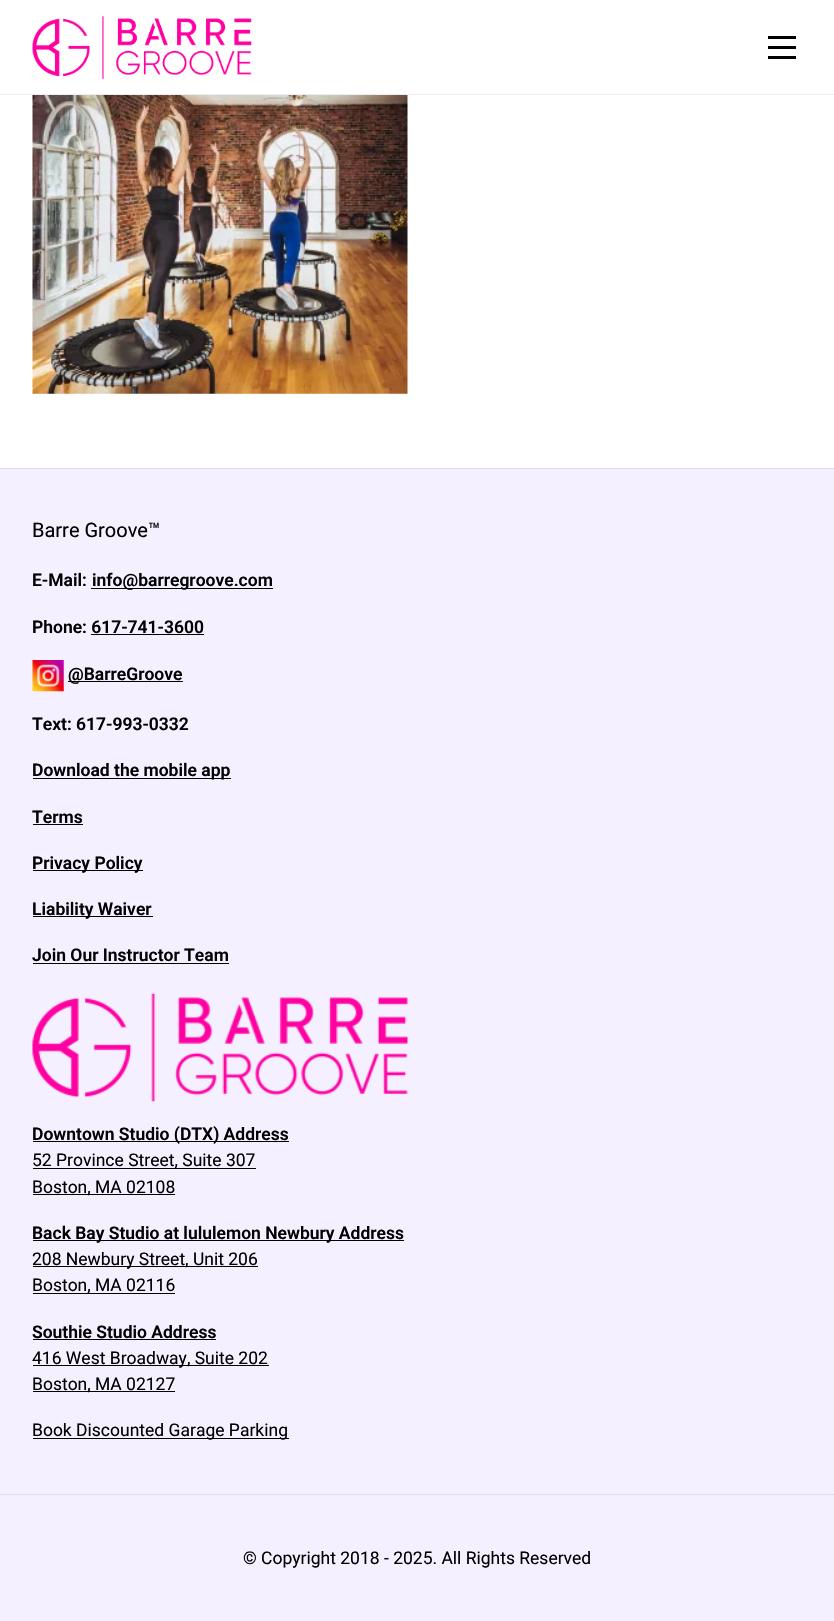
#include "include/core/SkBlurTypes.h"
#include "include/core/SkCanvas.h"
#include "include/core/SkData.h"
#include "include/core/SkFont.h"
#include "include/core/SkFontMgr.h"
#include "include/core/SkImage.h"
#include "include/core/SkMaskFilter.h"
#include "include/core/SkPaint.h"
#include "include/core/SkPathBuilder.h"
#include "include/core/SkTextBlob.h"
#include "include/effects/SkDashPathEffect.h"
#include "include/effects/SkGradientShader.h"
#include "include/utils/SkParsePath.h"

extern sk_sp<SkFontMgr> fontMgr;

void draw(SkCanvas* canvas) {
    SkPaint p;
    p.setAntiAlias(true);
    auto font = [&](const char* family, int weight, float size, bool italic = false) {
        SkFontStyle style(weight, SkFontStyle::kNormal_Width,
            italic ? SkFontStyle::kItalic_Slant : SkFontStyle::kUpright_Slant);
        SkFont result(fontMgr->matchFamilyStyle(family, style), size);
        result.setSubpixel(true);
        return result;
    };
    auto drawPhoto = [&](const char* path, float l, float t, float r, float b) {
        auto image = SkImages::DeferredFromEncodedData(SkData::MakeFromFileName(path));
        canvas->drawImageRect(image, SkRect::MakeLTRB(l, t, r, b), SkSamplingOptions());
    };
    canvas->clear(0xFFFFFFFF);
    p.setColor(0xFFEDEDED);
    canvas->drawRect(SkRect::MakeLTRB(0, 94, 834, 95), p);
    drawPhoto("media/1.png", 32, 16, 252, 79);
    {
        const struct { float l, t, r, b; SkColor color; } items[] = {
            {768, 36, 796, 39, 0xFF000000},
            {768, 46, 796, 49, 0xFF000000},
            {768, 56, 796, 59, 0xFF000000},
        };
        for (auto [l, t, r, b, color] : items) {
            p.setColor(color);
            canvas->drawRect(SkRect::MakeLTRB(l, t, r, b), p);
        }
    }
    drawPhoto("media/2.png", 32, 95, 408, 394);
    p.setColor(0xFFF4F0FF);
    canvas->drawRect(SkRect::MakeLTRB(0, 469, 834, 1494), p);
    p.setColor(0xFFE0D9F5);
    canvas->drawRect(SkRect::MakeLTRB(0, 468, 834, 469), p);
    auto font1 = font("Roboto", 400, 20);
    p.setColor(0xFF000000);
    canvas->drawString("Barre Groove™", 32, 537, font1, p);
    auto font2 = font("Roboto", 600, 17.5f);
    canvas->drawString("E-Mail:", 32, 586, font2, p);
    canvas->drawRect(SkRect::MakeLTRB(91, 588, 273, 589), p);
    canvas->drawString("info@barregroove.com", 92, 586, font2, p);
    canvas->drawString("Phone: 617-741-3600", 32, 633, font2, p);
    canvas->drawRect(SkRect::MakeLTRB(91, 634, 204, 635), p);
    drawPhoto("media/3.png", 32, 660, 64, 692);
    canvas->drawRect(SkRect::MakeLTRB(68, 681, 183, 682), p);
    canvas->drawString("@BarreGroove", 68, 680, font2, p);
    canvas->drawString("Text: 617-993-0332", 32, 730, font2, p);
    canvas->drawRect(SkRect::MakeLTRB(33, 778, 231, 779), p);
    canvas->drawString("Download the mobile app", 32, 776, font2, p);
    canvas->drawString("Terms", 32, 823, font2, p);
    canvas->drawRect(SkRect::MakeLTRB(33, 824, 83, 825), p);
    canvas->drawRect(SkRect::MakeLTRB(33, 870, 143, 871), p);
    canvas->drawString("Privacy Policy", 32, 869, font2, p);
    canvas->drawRect(SkRect::MakeLTRB(33, 916, 153, 917), p);
    canvas->drawString("Liability Waiver", 32, 915, font2, p);
    canvas->drawString("Join Our Instructor Team", 32, 961, font2, p);
    canvas->drawRect(SkRect::MakeLTRB(33, 963, 229, 964), p);
    drawPhoto("media/4.png", 32, 993, 408, 1102);
    canvas->drawRect(SkRect::MakeLTRB(33, 1141, 289, 1142), p);
    canvas->drawString("Downtown Studio (DTX) Address", 32, 1140, font2, p);
    canvas->drawRect(SkRect::MakeLTRB(33, 1168, 256, 1169), p);
    auto font3 = font("Roboto", 400, 17.5f);
    canvas->drawString("52 Province Street, Suite 307", 32, 1166, font3, p);
    canvas->drawRect(SkRect::MakeLTRB(33, 1194, 175, 1195), p);
    canvas->drawString("Boston, MA 02108", 32, 1193, font3, p);
    canvas->drawRect(SkRect::MakeLTRB(33, 1240, 404, 1241), p);
    canvas->drawString("Back Bay Studio at lululemon Newbury Address", 32, 1239, font2, p);
    canvas->drawRect(SkRect::MakeLTRB(33, 1266, 258, 1267), p);
    canvas->drawString("208 Newbury Street, Unit 206", 32, 1265, font3, p);
    canvas->drawRect(SkRect::MakeLTRB(33, 1293, 175, 1294), p);
    canvas->drawString("Boston, MA 02116", 32, 1291, font3, p);
    canvas->drawString("Southie Studio Address", 32, 1338, font2, p);
    canvas->drawRect(SkRect::MakeLTRB(33, 1339, 216, 1340), p);
    canvas->drawRect(SkRect::MakeLTRB(33, 1365, 269, 1366), p);
    canvas->drawString("416 West Broadway, Suite 202", 32, 1364, font3, p);
    canvas->drawRect(SkRect::MakeLTRB(33, 1391, 175, 1392), p);
    canvas->drawString("Boston, MA 02127", 32, 1390, font3, p);
    canvas->drawRect(SkRect::MakeLTRB(33, 1438, 289, 1439), p);
    canvas->drawString("Book Discounted Garage Parking", 32, 1436, font3, p);
    p.setColor(0xFFF4F0FF);
    canvas->drawRect(SkRect::MakeLTRB(0, 1495, 834, 1621), p);
    p.setColor(0xFFE0D9F5);
    canvas->drawRect(SkRect::MakeLTRB(0, 1494, 834, 1495), p);
    p.setColor(0xFF000000);
    canvas->drawString("© Copyright 2018 - 2025. All Rights Reserved", 243, 1564, font3, p);
}
